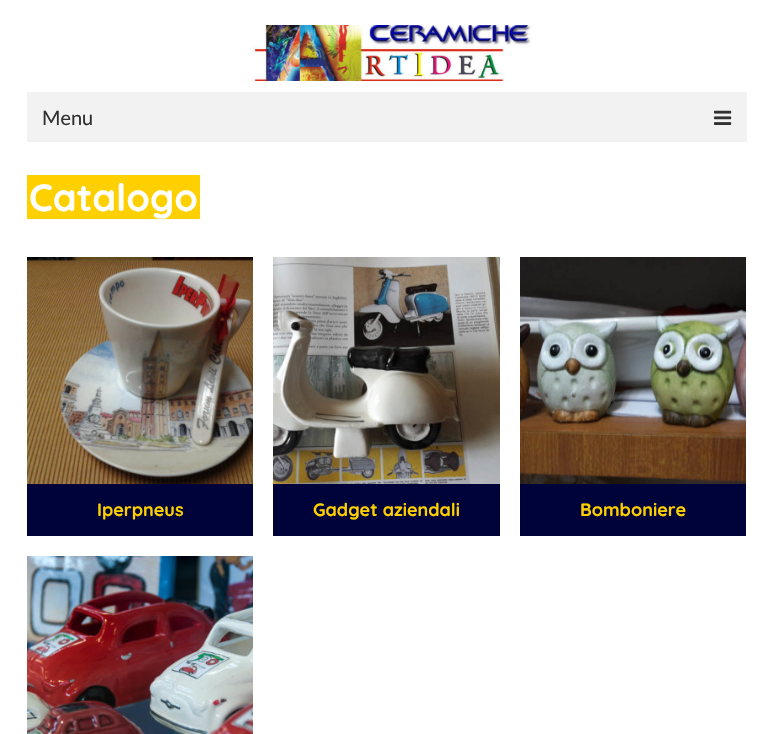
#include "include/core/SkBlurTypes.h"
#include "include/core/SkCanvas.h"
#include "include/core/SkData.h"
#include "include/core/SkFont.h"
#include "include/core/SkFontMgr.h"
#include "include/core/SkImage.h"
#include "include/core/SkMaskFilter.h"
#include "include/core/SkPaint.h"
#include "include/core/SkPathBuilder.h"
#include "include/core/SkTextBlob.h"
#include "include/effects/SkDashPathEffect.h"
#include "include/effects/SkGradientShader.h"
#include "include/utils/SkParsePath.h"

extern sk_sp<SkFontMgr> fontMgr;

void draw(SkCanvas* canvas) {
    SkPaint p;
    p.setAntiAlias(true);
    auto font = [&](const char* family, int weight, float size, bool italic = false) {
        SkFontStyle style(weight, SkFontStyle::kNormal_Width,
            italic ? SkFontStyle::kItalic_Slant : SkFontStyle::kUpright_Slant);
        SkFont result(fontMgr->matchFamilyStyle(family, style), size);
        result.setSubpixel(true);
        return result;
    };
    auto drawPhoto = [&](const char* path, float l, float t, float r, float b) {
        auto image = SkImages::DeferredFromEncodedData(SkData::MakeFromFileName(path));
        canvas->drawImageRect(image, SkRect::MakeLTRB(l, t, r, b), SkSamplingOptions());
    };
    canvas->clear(0xFFFFFFFF);
    drawPhoto("media/1.png", 243, 25, 531, 81);
    p.setColor(0xFFF2F2F2);
    canvas->drawRect(SkRect::MakeLTRB(27, 92, 747, 142), p);
    auto font1 = font("Lato", 400, 20);
    p.setColor(0xFF303030);
    canvas->drawString("Menu", 42, 125, font1, p);
    drawPhoto("media/2.png", 714, 110, 732, 125);
    p.setColor(0xFFFFD000);
    canvas->drawRect(SkRect::MakeLTRB(27, 175, 200, 219), p);
    auto font2 = font("Quicksand", 700, 38);
    p.setColor(0xFFFFFFFF);
    canvas->drawString("Catalogo", 29, 211, font2, p);
    p.setColor(0xFF00033A);
    canvas->drawRect(SkRect::MakeLTRB(27, 484, 253, 536), p);
    drawPhoto("media/3.png", 27, 257, 253, 484);
    auto font3 = font("Quicksand", 700, 18);
    p.setColor(0xFFFFD000);
    canvas->drawString("Iperpneus", 97, 516, font3, p);
    p.setColor(0xFF00033A);
    canvas->drawRect(SkRect::MakeLTRB(273, 484, 500, 536), p);
    drawPhoto("media/4.png", 273, 257, 500, 484);
    p.setColor(0xFFFFD000);
    canvas->drawString("Gadget aziendali", 313, 516, font3, p);
    p.setColor(0xFF00033A);
    canvas->drawRect(SkRect::MakeLTRB(520, 484, 746, 536), p);
    drawPhoto("media/5.png", 520, 257, 746, 484);
    p.setColor(0xFFFFD000);
    canvas->drawString("Bomboniere", 580, 516, font3, p);
    drawPhoto("media/6.png", 27, 556, 253, 734);
}
